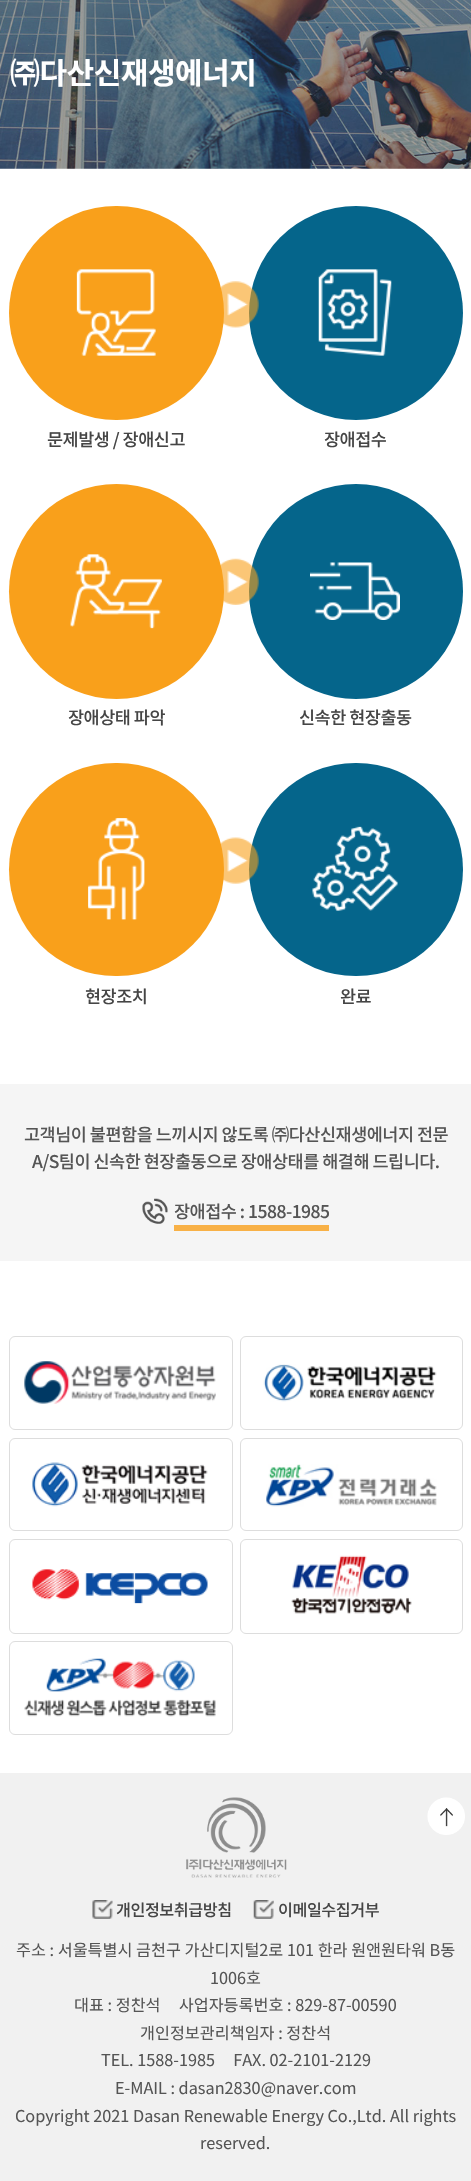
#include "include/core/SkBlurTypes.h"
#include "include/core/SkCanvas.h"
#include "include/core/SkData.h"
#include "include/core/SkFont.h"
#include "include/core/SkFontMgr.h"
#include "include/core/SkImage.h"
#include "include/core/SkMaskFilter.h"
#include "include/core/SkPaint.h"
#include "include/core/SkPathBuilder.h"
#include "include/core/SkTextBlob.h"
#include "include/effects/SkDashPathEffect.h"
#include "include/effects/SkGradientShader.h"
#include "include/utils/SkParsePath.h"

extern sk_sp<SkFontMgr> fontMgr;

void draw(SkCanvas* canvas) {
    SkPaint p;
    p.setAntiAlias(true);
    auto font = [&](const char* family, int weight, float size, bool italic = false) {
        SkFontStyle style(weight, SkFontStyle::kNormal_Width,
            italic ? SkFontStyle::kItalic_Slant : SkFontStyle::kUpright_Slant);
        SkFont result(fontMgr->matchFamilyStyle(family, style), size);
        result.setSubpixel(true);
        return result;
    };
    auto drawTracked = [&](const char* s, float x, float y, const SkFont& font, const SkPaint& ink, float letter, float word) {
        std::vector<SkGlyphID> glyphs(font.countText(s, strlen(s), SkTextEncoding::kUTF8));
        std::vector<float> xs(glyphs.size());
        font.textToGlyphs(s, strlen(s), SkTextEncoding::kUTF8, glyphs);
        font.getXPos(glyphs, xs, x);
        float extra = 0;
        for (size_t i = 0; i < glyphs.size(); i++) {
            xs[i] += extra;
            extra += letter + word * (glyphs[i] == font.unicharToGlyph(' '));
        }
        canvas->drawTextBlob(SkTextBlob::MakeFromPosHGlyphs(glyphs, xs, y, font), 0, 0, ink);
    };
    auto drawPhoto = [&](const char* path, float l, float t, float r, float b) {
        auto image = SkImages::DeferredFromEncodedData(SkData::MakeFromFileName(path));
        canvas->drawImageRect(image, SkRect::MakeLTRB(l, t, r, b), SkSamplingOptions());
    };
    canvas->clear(0xFFFFFFFF);
    drawPhoto("media/1.png", 0, 0, 471, 169);
    auto font1 = font("Noto Sans KR", 700, 30);
    p.setColor(0xFFFFFFFF);
    drawTracked("㈜다산신재생에너지", 10, 84, font1, p, -0.5f, 0);
    p.setColor(0xFFF9A01B);
    canvas->drawRoundRect(SkRect::MakeLTRB(9, 206, 224, 420), 107, 107, p);
    p.setColor(0xFF05658B);
    canvas->drawCircle(356, 313, 107, p);
    drawPhoto("media/2.png", 220, 281, 259, 328);
    drawPhoto("media/3.png", 76, 269, 156, 356);
    auto font2 = font("Noto Sans KR", 500, 17.5f);
    p.setColor(0xFF454545);
    drawTracked("문제발생 / 장애신고", 47, 446, font2, p, -0.5f, 0);
    drawPhoto("media/4.png", 318, 269, 392, 356);
    drawTracked("장애접수", 324, 446, font2, p, -0.5f, 0);
    p.setColor(0xFFF9A01B);
    canvas->drawCircle(116.5f, 591.5f, 107.5f, p);
    p.setColor(0xFF05658B);
    canvas->drawRoundRect(SkRect::MakeLTRB(249, 484, 463, 699), 107, 107, p);
    drawPhoto("media/5.png", 220, 558, 259, 605);
    drawPhoto("media/6.png", 70, 554, 162, 629);
    p.setColor(0xFF454545);
    drawTracked("장애상태 파악", 68, 724, font2, p, -0.5f, 0);
    drawPhoto("media/7.png", 310, 562, 400, 620);
    drawTracked("신속한 현장출동", 299, 724, font2, p, -0.5f, 0);
    p.setColor(0xFFF9A01B);
    canvas->drawRoundRect(SkRect::MakeLTRB(9, 763, 224, 976), 106.5f, 106.5f, p);
    p.setColor(0xFF05658B);
    canvas->drawRoundRect(SkRect::MakeLTRB(249, 763, 463, 976), 106.5f, 106.5f, p);
    drawPhoto("media/8.png", 220, 837, 259, 884);
    drawPhoto("media/9.png", 88, 818, 145, 920);
    p.setColor(0xFF454545);
    drawTracked("현장조치", 85, 1003, font2, p, -0.5f, 0);
    drawPhoto("media/10.png", 312, 826, 398, 911);
    drawTracked("완료", 340, 1003, font2, p, -0.5f, 0);
    p.setColor(0xFFF5F5F5);
    canvas->drawRect(SkRect::MakeLTRB(0, 1084, 471, 1261), p);
    p.setColor(0xFF555555);
    drawTracked("고객님이 불편함을 느끼시지 않도록 ㈜다산신재생에너지 전문", 24, 1141, font2, p, -0.5f, 0);
    drawTracked("A/S팀이 신속한 현장출동으로 장애상태를 해결해 드립니다.", 32, 1168, font2, p, -0.5f, 0);
    drawPhoto("media/11.png", 142, 1198, 168, 1224);
    drawTracked("장애접수 : 1588-1985", 174, 1218, font2, p, -0.5f, 0);
    p.setColor(0xFFF8B147);
    canvas->drawRect(SkRect::MakeLTRB(174, 1225, 329, 1231), p);
    p.setStyle(SkPaint::kStroke_Style);
    p.setStrokeWidth(1);
    p.setColor(0xFFDDDDDD);
    canvas->drawRoundRect(SkRect::MakeLTRB(9.5f, 1336.5f, 232.5f, 1429.5f), 5.5f, 5.5f, p);
    drawPhoto("media/12.png", 24, 1361, 216, 1404);
    canvas->drawRoundRect(SkRect::MakeLTRB(240.5f, 1336.5f, 462.5f, 1429.5f), 5.5f, 5.5f, p);
    drawPhoto("media/13.png", 263, 1364, 437, 1402);
    canvas->drawRoundRect(SkRect::MakeLTRB(9.5f, 1438.5f, 232.5f, 1530.5f), 5.5f, 5.5f, p);
    drawPhoto("media/14.png", 32, 1462, 208, 1507);
    canvas->drawRoundRect(SkRect::MakeLTRB(240.5f, 1438.5f, 462.5f, 1530.5f), 5.5f, 5.5f, p);
    drawPhoto("media/15.png", 266, 1464, 437, 1507);
    canvas->drawRoundRect(SkRect::MakeLTRB(9.5f, 1539.5f, 232.5f, 1633.5f), 5.5f, 5.5f, p);
    drawPhoto("media/16.png", 32, 1569, 208, 1604);
    canvas->drawRoundRect(SkRect::MakeLTRB(240.5f, 1539.5f, 462.5f, 1633.5f), 5.5f, 5.5f, p);
    drawPhoto("media/17.png", 291, 1555, 412, 1615);
    canvas->drawRoundRect(SkRect::MakeLTRB(9.5f, 1641.5f, 232.5f, 1734.5f), 5.5f, 5.5f, p);
    drawPhoto("media/18.png", 24, 1658, 216, 1717);
    p.setStyle(SkPaint::kFill_Style);
    p.setColor(0xFFF1F1F1);
    canvas->drawRect(SkRect::MakeLTRB(0, 1773, 471, 2181), p);
    drawPhoto("media/19.png", 427, 1797, 465, 1835);
    drawPhoto("media/20.png", 186, 1797, 287, 1878);
    drawPhoto("media/21.png", 92, 1900, 113, 1919);
    auto font3 = font("Noto Sans KR", 500, 16.25f);
    p.setColor(0xFF454545);
    drawTracked("개인정보취급방침", 116, 1916, font3, p, -0.5f, 0);
    drawPhoto("media/22.png", 253, 1900, 274, 1919);
    drawTracked("이메일수집거부", 278, 1916, font3, p, -0.5f, 0);
    auto font4 = font("Noto Sans KR", 400, 16.25f);
    p.setColor(0xFF555555);
    {
        const struct { const char* s; float x, y; } items[] = {
            {"주소 : 서울특별시 금천구 가산디지털2로 101 한라 원앤원타워 B동", 16, 1956},
            {"1006호", 210, 1984},
            {"대표 : 정찬석     사업자등록번호 : 829-87-00590", 74, 2011},
            {"개인정보관리책임자 : 정찬석", 140, 2039},
            {"TEL. 1588-1985     FAX. 02-2101-2129", 101, 2066},
            {"E-MAIL : dasan2830@naver.com", 115, 2094},
            {"Copyright 2021 Dasan Renewable Energy Co.,Ltd. All rights", 15, 2122},
            {"reserved.", 200, 2149},
        };
        for (auto [s, x, y] : items) {
            canvas->drawString(s, x, y, font4, p);
        }
    }
}
